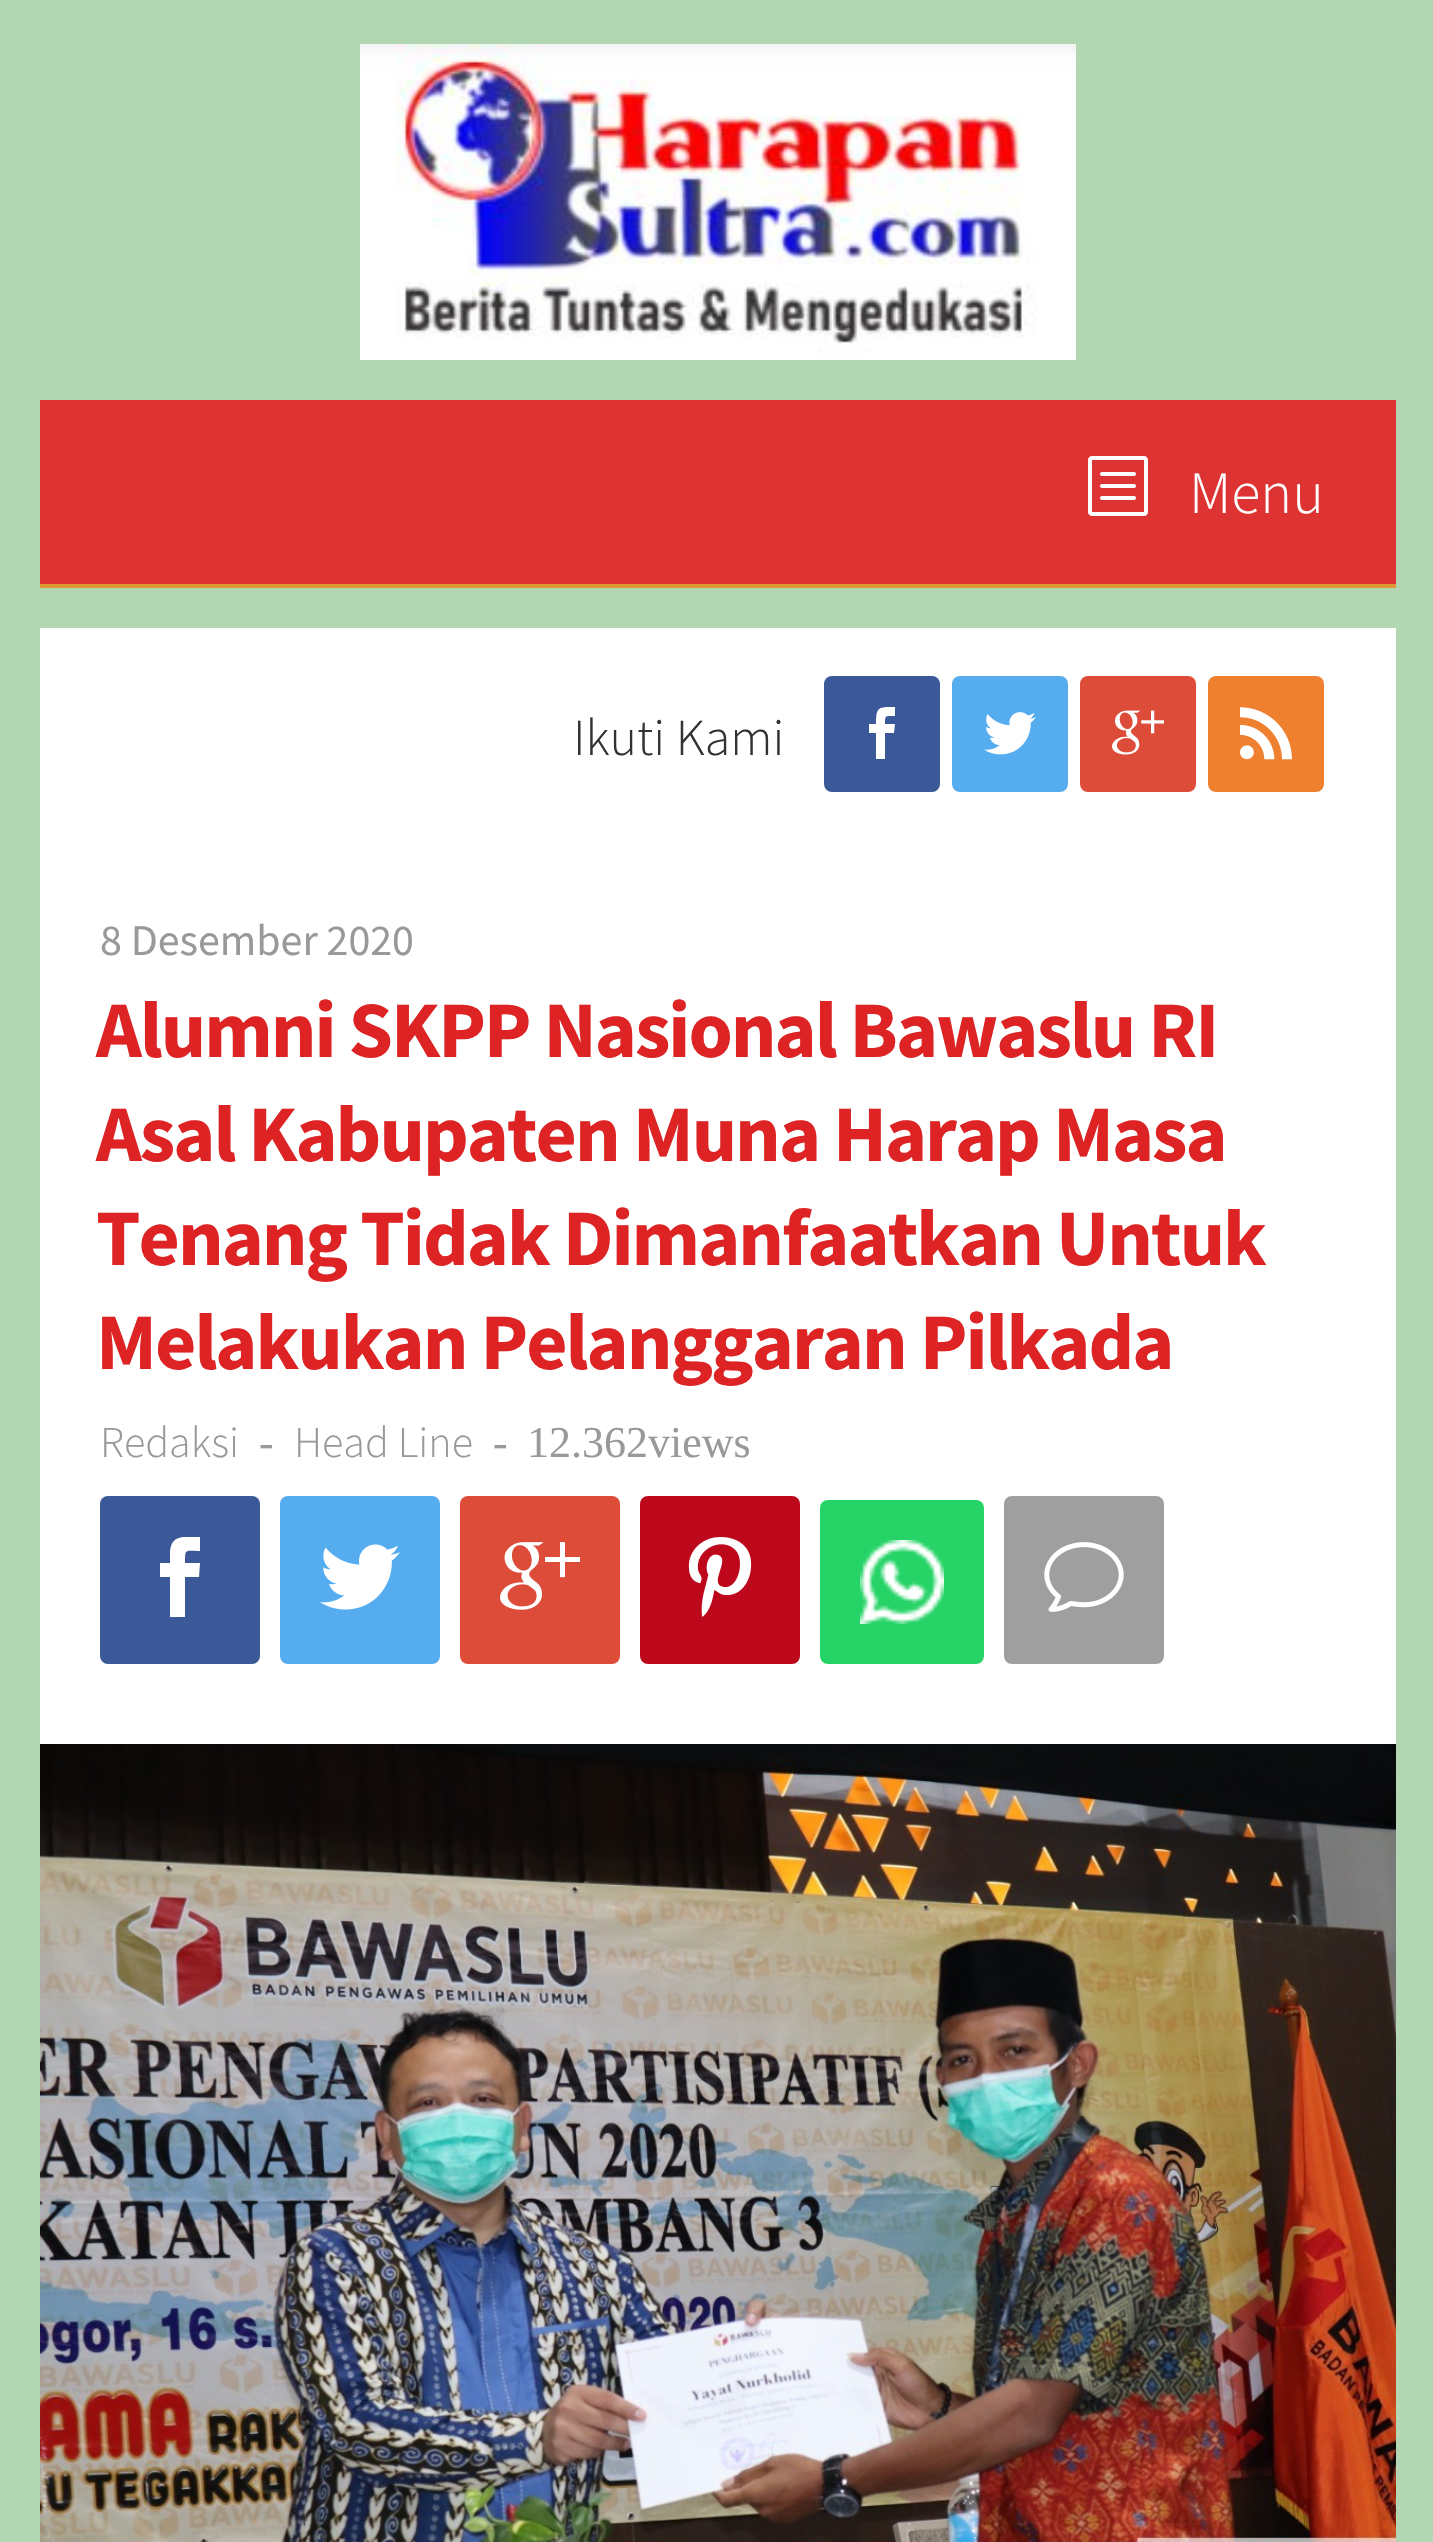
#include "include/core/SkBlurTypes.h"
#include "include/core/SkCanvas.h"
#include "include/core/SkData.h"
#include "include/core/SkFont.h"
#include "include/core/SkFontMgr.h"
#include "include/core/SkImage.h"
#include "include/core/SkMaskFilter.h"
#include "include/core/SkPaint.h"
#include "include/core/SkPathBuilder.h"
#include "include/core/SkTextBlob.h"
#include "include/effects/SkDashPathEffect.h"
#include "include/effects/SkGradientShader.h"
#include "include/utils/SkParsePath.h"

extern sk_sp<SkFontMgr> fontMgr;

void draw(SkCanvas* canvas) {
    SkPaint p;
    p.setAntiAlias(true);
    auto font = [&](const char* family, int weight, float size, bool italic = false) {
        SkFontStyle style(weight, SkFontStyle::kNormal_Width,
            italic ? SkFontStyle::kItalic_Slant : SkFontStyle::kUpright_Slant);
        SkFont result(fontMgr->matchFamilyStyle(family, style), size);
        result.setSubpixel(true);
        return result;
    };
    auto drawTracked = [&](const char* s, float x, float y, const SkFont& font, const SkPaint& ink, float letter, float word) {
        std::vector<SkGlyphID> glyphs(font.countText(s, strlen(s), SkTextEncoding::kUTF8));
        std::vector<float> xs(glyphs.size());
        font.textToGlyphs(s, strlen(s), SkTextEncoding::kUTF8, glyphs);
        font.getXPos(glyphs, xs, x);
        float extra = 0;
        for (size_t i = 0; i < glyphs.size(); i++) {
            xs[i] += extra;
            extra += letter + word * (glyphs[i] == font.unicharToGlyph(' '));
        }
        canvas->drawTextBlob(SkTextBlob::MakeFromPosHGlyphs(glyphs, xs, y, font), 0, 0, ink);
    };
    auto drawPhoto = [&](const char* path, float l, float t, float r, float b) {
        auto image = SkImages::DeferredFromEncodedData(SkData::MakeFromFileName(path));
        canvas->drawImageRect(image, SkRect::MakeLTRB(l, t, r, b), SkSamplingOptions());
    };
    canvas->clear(0xFFB3D6B3);
    drawPhoto("media/1.png", 360, 44, 1076, 360);
    p.setColor(0xFFDD3333);
    canvas->drawRect(SkRect::MakeLTRB(40, 400, 1396, 584), p);
    p.setColor(0xFFDD9933);
    canvas->drawRect(SkRect::MakeLTRB(40, 584, 1396, 588), p);
    drawPhoto("media/2.png", 1088, 456, 1148, 516);
    auto font1 = font("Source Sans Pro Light", 300, 60);
    p.setColor(0xFFFFFFFF);
    canvas->drawString("Menu", 1189, 513, font1, p);
    canvas->drawRect(SkRect::MakeLTRB(40, 628, 1396, 1744), p);
    auto font2 = font("Source Sans Pro Light", 300, 52);
    p.setColor(0xFF323233);
    canvas->drawString("Ikuti Kami", 573, 755, font2, p);
    p.setColor(0xFF3B5998);
    canvas->drawRoundRect(SkRect::MakeLTRB(824, 676, 940, 792), 8, 8, p);
    p.setColor(0xFFFFFFFF);
    canvas->drawPath(SkPathBuilder().moveTo(876, 759).lineTo(876, 733).lineTo(869, 733).lineTo(869, 724).lineTo(876, 724).cubicTo(876, 706, 879, 707, 895, 707).lineTo(895, 716).cubicTo(885, 716, 885, 715, 885, 724).lineTo(895, 724).lineTo(894, 733).lineTo(885, 733).lineTo(885, 759).close().detach(), p);
    p.setColor(0xFF55ACEE);
    canvas->drawRoundRect(SkRect::MakeLTRB(952, 676, 1068, 792), 8, 8, p);
    drawPhoto("media/3.png", 984, 712, 1036, 755);
    p.setColor(0xFFDD4B39);
    canvas->drawRoundRect(SkRect::MakeLTRB(1080, 676, 1196, 792), 8, 8, p);
    drawPhoto("media/4.png", 1112, 710, 1164, 755);
    p.setColor(0xFFEE802F);
    canvas->drawRoundRect(SkRect::MakeLTRB(1208, 676, 1324, 792), 8, 8, p);
    drawPhoto("media/5.png", 1240, 707, 1292, 760);
    auto font3 = font("Source Sans Pro", 400, 44);
    p.setColor(0xFF999999);
    canvas->drawString("8 Desember 2020", 100, 955, font3, p);
    auto font4 = font("Source Sans Pro", 700, 80);
    p.setColor(0xFFDD2323);
    {
        const struct { const char* s; float x, y; } items[] = {
            {"Alumni SKPP Nasional Bawaslu RI", 96, 1057},
            {"Asal Kabupaten Muna Harap Masa", 96, 1161},
            {"Tenang Tidak Dimanfaatkan Untuk", 96, 1265},
            {"Melakukan Pelanggaran Pilkada", 96, 1369},
        };
        for (auto [s, x, y] : items) {
            drawTracked(s, x, y, font4, p, -2, 0);
        }
    }
    auto font5 = font("Source Sans Pro Light", 300, 44);
    p.setColor(0xFF999999);
    canvas->drawString("Redaksi", 100, 1457, font5, p);
    auto font6 = font("Liberation Serif", 400, 44);
    canvas->drawString("-", 259, 1457, font6, p);
    canvas->drawString("Head Line", 294, 1457, font5, p);
    canvas->drawString("-", 493, 1457, font6, p);
    canvas->drawString("12.362views", 527, 1457, font6, p);
    p.setColor(0xFF3B5998);
    canvas->drawRoundRect(SkRect::MakeLTRB(100, 1496, 260, 1664), 8, 8, p);
    p.setColor(0xFFFFFFFF);
    canvas->drawPath(SkPathBuilder().moveTo(170, 1617).lineTo(170, 1577).lineTo(160, 1577).lineTo(160, 1563).lineTo(170, 1563).lineTo(170, 1555).cubicTo(170, 1544, 173, 1537, 186, 1537).lineTo(200, 1537).lineTo(200, 1551).cubicTo(185, 1551, 185, 1548, 185, 1563).lineTo(200, 1563).lineTo(199, 1577).lineTo(185, 1577).lineTo(185, 1617).close().detach(), p);
    p.setColor(0xFF55ACEE);
    canvas->drawRoundRect(SkRect::MakeLTRB(280, 1496, 440, 1664), 8, 8, p);
    drawPhoto("media/6.png", 320, 1544, 400, 1610);
    p.setColor(0xFFDD4B39);
    canvas->drawRoundRect(SkRect::MakeLTRB(460, 1496, 620, 1664), 8, 8, p);
    drawPhoto("media/7.png", 500, 1542, 580, 1610);
    p.setColor(0xFFBD081C);
    canvas->drawRoundRect(SkRect::MakeLTRB(640, 1496, 800, 1664), 8, 8, p);
    drawPhoto("media/8.png", 688, 1537, 752, 1617);
    p.setColor(0xFF25D366);
    canvas->drawRoundRect(SkRect::MakeLTRB(820, 1500, 984, 1664), 8, 8, p);
    drawPhoto("media/9.png", 860, 1540, 944, 1624);
    p.setColor(0xFF9F9F9F);
    canvas->drawRoundRect(SkRect::MakeLTRB(1004, 1496, 1164, 1664), 8, 8, p);
    drawPhoto("media/10.png", 1044, 1542, 1124, 1612);
    drawPhoto("media/11.png", 40, 1744, 1396, 2542);
}
